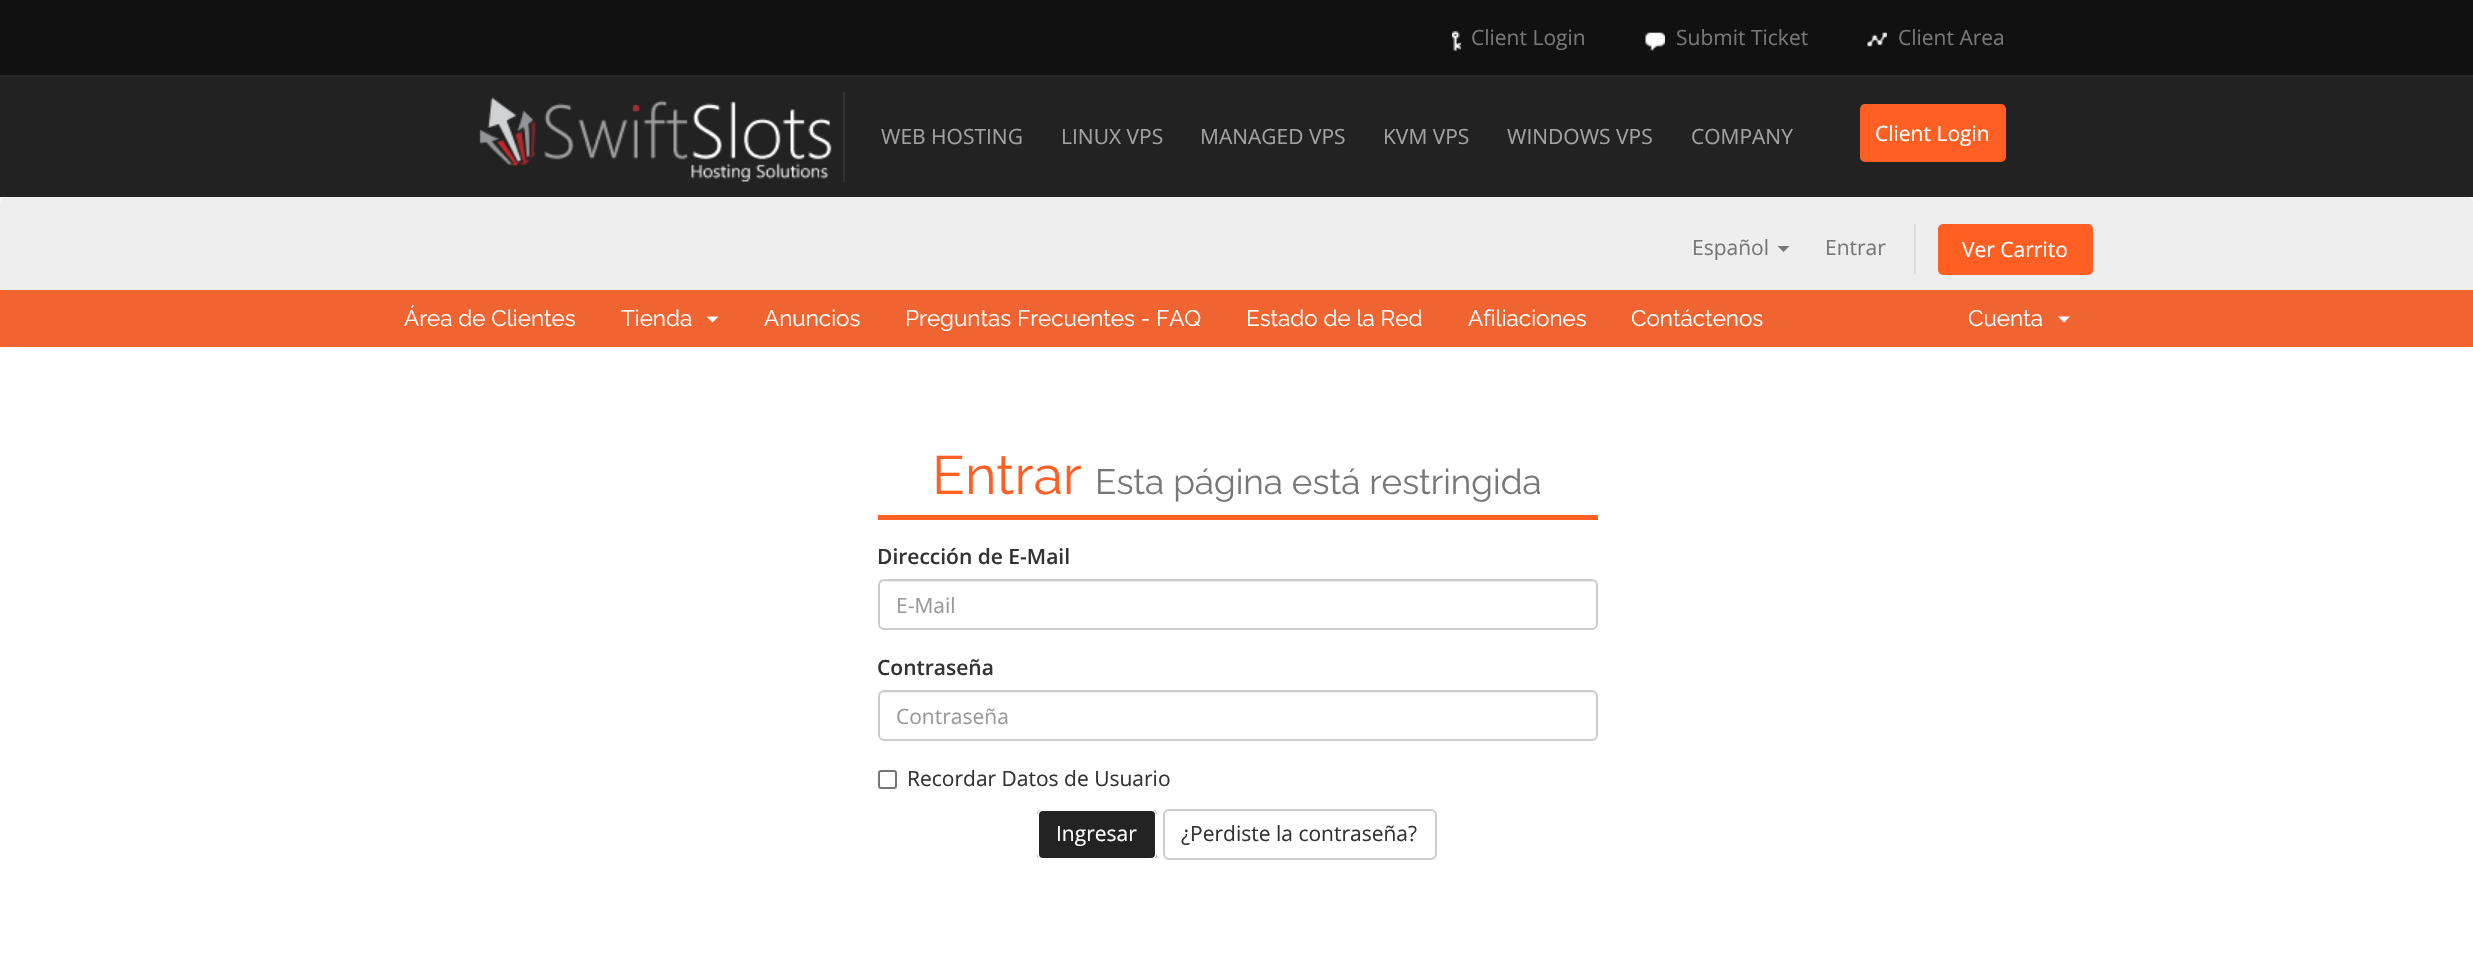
#include "include/core/SkBlurTypes.h"
#include "include/core/SkCanvas.h"
#include "include/core/SkData.h"
#include "include/core/SkFont.h"
#include "include/core/SkFontMgr.h"
#include "include/core/SkImage.h"
#include "include/core/SkMaskFilter.h"
#include "include/core/SkPaint.h"
#include "include/core/SkPathBuilder.h"
#include "include/core/SkTextBlob.h"
#include "include/effects/SkDashPathEffect.h"
#include "include/effects/SkGradientShader.h"
#include "include/utils/SkParsePath.h"

extern sk_sp<SkFontMgr> fontMgr;

void draw(SkCanvas* canvas) {
    SkPaint p;
    p.setAntiAlias(true);
    auto font = [&](const char* family, int weight, float size, bool italic = false) {
        SkFontStyle style(weight, SkFontStyle::kNormal_Width,
            italic ? SkFontStyle::kItalic_Slant : SkFontStyle::kUpright_Slant);
        SkFont result(fontMgr->matchFamilyStyle(family, style), size);
        result.setSubpixel(true);
        return result;
    };
    auto drawPhoto = [&](const char* path, float l, float t, float r, float b) {
        auto image = SkImages::DeferredFromEncodedData(SkData::MakeFromFileName(path));
        canvas->drawImageRect(image, SkRect::MakeLTRB(l, t, r, b), SkSamplingOptions());
    };
    canvas->clear(0xFFF8F8F8);
    p.setColor(0xFF111111);
    canvas->drawRect(SkRect::MakeLTRB(0, 0, 2473, 75), p);
    drawPhoto("media/1.png", 1452, 31, 1461, 51);
    auto font1 = font("Open Sans", 400, 21);
    p.setColor(0xFF777777);
    canvas->drawString("Client Login", 1471, 45, font1, p);
    drawPhoto("media/2.png", 1645, 32, 1665, 51);
    canvas->drawString("Submit Ticket", 1676, 45, font1, p);
    drawPhoto("media/3.png", 1867, 32, 1887, 47);
    canvas->drawString("Client Area", 1898, 45, font1, p);
    p.setColor(0xFF222222);
    canvas->drawRect(SkRect::MakeLTRB(0, 77, 2473, 197), p);
    p.setColor(0xFF282828);
    canvas->drawRect(SkRect::MakeLTRB(0, 75, 2473, 77), p);
    drawPhoto("media/4.png", 479, 97, 832, 182);
    p.setColor(0xFF333333);
    canvas->drawRect(SkRect::MakeLTRB(843, 92, 845, 182), p);
    p.setColor(0xFFA2A2A2);
    {
        const struct { const char* s; float x, y; } items[] = {
            {"WEB HOSTING", 881, 144},
            {"LINUX VPS", 1061, 144},
            {"MANAGED VPS", 1200, 144},
            {"KVM VPS", 1383, 144},
            {"WINDOWS VPS", 1507, 144},
            {"COMPANY", 1691, 144},
        };
        for (auto [s, x, y] : items) {
            canvas->drawString(s, x, y, font1, p);
        }
    }
    p.setColor(0xFFFF5F22);
    canvas->drawRoundRect(SkRect::MakeLTRB(1860, 104, 2006, 162), 5, 5, p);
    p.setColor(0xFFFFFFFF);
    canvas->drawString("Client Login", 1875, 141, font1, p);
    p.setColor(0xFFEEEEEE);
    canvas->drawPath(SkPathBuilder().moveTo(8, 197).lineTo(2466, 197).cubicTo(2470.5f, 197, 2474, 200.5f, 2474, 205).lineTo(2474, 290).lineTo(0, 290).lineTo(0, 205).cubicTo(0, 200.5f, 3.5f, 197, 8, 197).close().detach(), p);
    p.setColor(0xFF777777);
    canvas->drawString("Español", 1692, 255, font1, p);
    canvas->drawPath(SkPathBuilder().moveTo(1777.5f, 246).lineTo(1789.5f, 246).lineTo(1783.5f, 252).close().detach(), p);
    canvas->drawString("Entrar", 1825, 255, font1, p);
    p.setColor(0xFFDDDDDD);
    canvas->drawRect(SkRect::MakeLTRB(1914, 224, 1916, 275), p);
    p.setColor(0xFFFF5F22);
    canvas->drawRoundRect(SkRect::MakeLTRB(1938, 224, 2093, 275), 5, 5, p);
    p.setColor(0xFFFFFFFF);
    canvas->drawString("Ver Carrito", 1962, 257, font1, p);
    p.setColor(0xFFFF5F22);
    canvas->drawRect(SkRect::MakeLTRB(0, 290, 2473, 347), p);
    p.setColor(0xFFEF6430);
    canvas->drawRoundRect(SkRect::MakeLTRB(0, 290, 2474, 347), 6, 6, p);
    auto font2 = font("Raleway", 400, 22.5f);
    p.setColor(0xFFFFFFFF);
    canvas->drawString("Área de Clientes", 404, 326, font2, p);
    canvas->drawString("Tienda", 621, 326, font2, p);
    canvas->drawPath(SkPathBuilder().moveTo(706.5f, 316.5f).lineTo(718.5f, 316.5f).lineTo(712.5f, 322.5f).close().detach(), p);
    {
        const struct { const char* s; float x, y; } items[] = {
            {"Anuncios", 764, 326},
            {"Preguntas Frecuentes - FAQ", 905, 326},
            {"Estado de la Red", 1246, 326},
            {"Afiliaciones", 1468, 326},
            {"Contáctenos", 1631, 326},
            {"Cuenta", 1968, 326},
        };
        for (auto [s, x, y] : items) {
            canvas->drawString(s, x, y, font2, p);
        }
    }
    canvas->drawPath(SkPathBuilder().moveTo(2058, 316.5f).lineTo(2070, 316.5f).lineTo(2064, 322.5f).close().detach(), p);
    canvas->drawRect(SkRect::MakeLTRB(0, 347, 2473, 957), p);
    p.setColor(0xFFFF5F22);
    canvas->drawRect(SkRect::MakeLTRB(878, 515, 1598, 520), p);
    auto font3 = font("Raleway", 400, 54);
    canvas->drawString("Entrar", 932, 494, font3, p);
    auto font4 = font("Raleway", 400, 35.1f);
    p.setColor(0xFF777777);
    canvas->drawString("Esta página está restringida", 1095, 494, font4, p);
    auto font5 = font("Open Sans", 600, 21);
    p.setColor(0xFF333333);
    canvas->drawString("Dirección de E-Mail", 877, 564, font5, p);
    p.setColor(0xFFECECEC);
    canvas->drawPath(SkPathBuilder().moveTo(884, 582).lineTo(1592, 582).cubicTo(1594, 582, 1596, 584, 1596, 586).cubicTo(1596, 583, 1594, 581, 1591, 581).lineTo(884, 581).cubicTo(881, 581, 879, 583, 879, 586).cubicTo(879, 584, 881, 582, 884, 582).close().detach(), p);
    p.setStyle(SkPaint::kStroke_Style);
    p.setStrokeWidth(2);
    p.setColor(0xFFCCCCCC);
    canvas->drawRoundRect(SkRect::MakeLTRB(879, 580, 1597, 629), 5, 5, p);
    p.setStyle(SkPaint::kFill_Style);
    p.setColor(0xFF999999);
    canvas->drawString("E-Mail", 896, 613, font1, p);
    p.setColor(0xFF333333);
    canvas->drawString("Contraseña", 877, 675, font5, p);
    p.setColor(0xFFECECEC);
    canvas->drawPath(SkPathBuilder().moveTo(884, 693).lineTo(1592, 693).cubicTo(1594, 693, 1596, 695, 1596, 698).cubicTo(1596, 695, 1594, 692, 1591, 692).lineTo(884, 692).cubicTo(881, 692, 879, 695, 879, 698).cubicTo(879, 695, 881, 693, 884, 693).close().detach(), p);
    p.setStyle(SkPaint::kStroke_Style);
    p.setColor(0xFFCCCCCC);
    canvas->drawRoundRect(SkRect::MakeLTRB(879, 691, 1597, 740), 5, 5, p);
    p.setStyle(SkPaint::kFill_Style);
    p.setColor(0xFF999999);
    canvas->drawString("Contraseña", 896, 724, font1, p);
    p.setStyle(SkPaint::kStroke_Style);
    p.setColor(0xFF767676);
    canvas->drawRoundRect(SkRect::MakeLTRB(879, 771, 896, 788), 2, 2, p);
    p.setStyle(SkPaint::kFill_Style);
    p.setColor(0xFF333333);
    canvas->drawString("Recordar Datos de Usuario", 907, 786, font1, p);
    canvas->save();
    canvas->clipPath(SkPathBuilder().moveTo(1043, 809).lineTo(1151, 809).cubicTo(1154.5f, 809, 1157, 811.5f, 1157, 815).lineTo(1157, 854).cubicTo(1157, 857.5f, 1154.5f, 860, 1151, 860).lineTo(1043, 860).cubicTo(1039.5f, 860, 1037, 857.5f, 1037, 854).lineTo(1037, 815).cubicTo(1037, 811.5f, 1039.5f, 809, 1043, 809).close().detach(), true);
    p.setColor(0xFF232323);
    canvas->drawRect(SkRect::MakeLTRB(1037, 810, 1157, 858), p);
    canvas->restore();
    p.setStyle(SkPaint::kStroke_Style);
    p.setColor(0xFFFFFFFF);
    canvas->drawRoundRect(SkRect::MakeLTRB(1038, 810, 1156, 859), 5, 5, p);
    p.setStyle(SkPaint::kFill_Style);
    canvas->drawString("Ingresar", 1056, 841, font1, p);
    p.setStyle(SkPaint::kStroke_Style);
    p.setColor(0xFFCCCCCC);
    canvas->drawRoundRect(SkRect::MakeLTRB(1164, 810, 1436, 859), 5, 5, p);
    p.setStyle(SkPaint::kFill_Style);
    p.setColor(0xFF333333);
    canvas->drawString("¿Perdiste la contraseña?", 1181, 841, font1, p);
}
